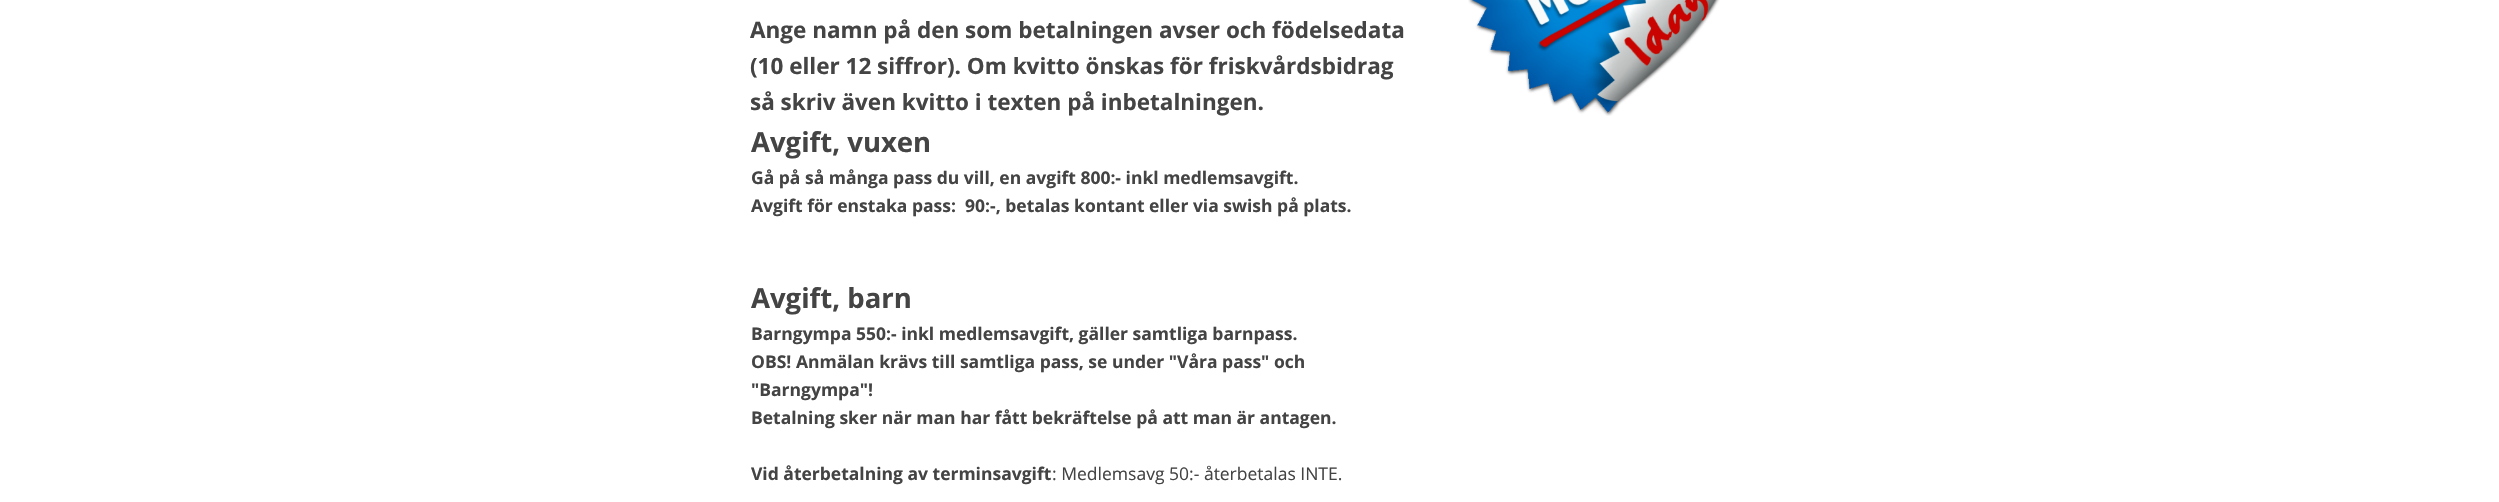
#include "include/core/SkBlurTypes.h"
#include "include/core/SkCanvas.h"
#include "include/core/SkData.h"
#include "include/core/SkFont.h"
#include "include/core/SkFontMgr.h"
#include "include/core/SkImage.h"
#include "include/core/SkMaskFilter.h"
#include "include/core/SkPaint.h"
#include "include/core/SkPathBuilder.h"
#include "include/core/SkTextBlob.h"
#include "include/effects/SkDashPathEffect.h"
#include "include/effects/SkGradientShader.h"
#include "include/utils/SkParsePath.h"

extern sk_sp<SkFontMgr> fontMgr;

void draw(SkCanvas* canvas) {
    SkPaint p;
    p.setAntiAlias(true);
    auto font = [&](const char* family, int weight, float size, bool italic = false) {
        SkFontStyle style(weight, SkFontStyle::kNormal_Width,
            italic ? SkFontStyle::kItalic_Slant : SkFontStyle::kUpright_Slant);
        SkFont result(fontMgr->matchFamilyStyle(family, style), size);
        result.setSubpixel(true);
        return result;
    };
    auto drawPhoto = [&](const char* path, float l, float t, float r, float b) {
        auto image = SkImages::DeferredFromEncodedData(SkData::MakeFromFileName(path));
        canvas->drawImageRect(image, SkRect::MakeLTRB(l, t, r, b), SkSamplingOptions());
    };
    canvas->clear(0xFFFFFFFF);
    auto font1 = font("Open Sans", 700, 22.5f);
    p.setColor(0xFF444444);
    {
        const struct { const char* s; float x, y; } items[] = {
            {"Ange namn på den som betalningen avser och födelsedata", 750, 38},
            {"(10 eller 12 siffror). Om kvitto önskas för friskvårdsbidrag", 750, 74},
            {"så skriv även kvitto i texten på inbetalningen.", 750, 110},
        };
        for (auto [s, x, y] : items) {
            canvas->drawString(s, x, y, font1, p);
        }
    }
    auto font2 = font("Open Sans", 700, 27.5f);
    canvas->drawString("Avgift, vuxen", 751, 152, font2, p);
    auto font3 = font("Open Sans", 700, 17.5f);
    canvas->drawString("Gå på så många pass du vill, en avgift 800:- inkl medlemsavgift.", 751, 184, font3, p);
    canvas->drawString("Avgift för enstaka pass:  90:-, betalas kontant eller via swish på plats.", 751, 212, font3, p);
    canvas->drawString("Avgift, barn", 751, 308, font2, p);
    {
        const struct { const char* s; float x, y; } items[] = {
            {"Barngympa 550:- inkl medlemsavgift, gäller samtliga barnpass.", 751, 340},
            {"OBS! Anmälan krävs till samtliga pass, se under \"Våra pass\" och", 751, 368},
            {"\"Barngympa\"!", 751, 396},
            {"Betalning sker när man har fått bekräftelse på att man är antagen.", 751, 424},
            {"Vid återbetalning av terminsavgift", 751, 480},
        };
        for (auto [s, x, y] : items) {
            canvas->drawString(s, x, y, font3, p);
        }
    }
    auto font4 = font("Open Sans", 400, 17.5f);
    canvas->drawString(": Medlemsavg 50:- återbetalas INTE.", 1052, 480, font4, p);
    drawPhoto("media/1.png", 1468, 0, 1720, 116);
}
